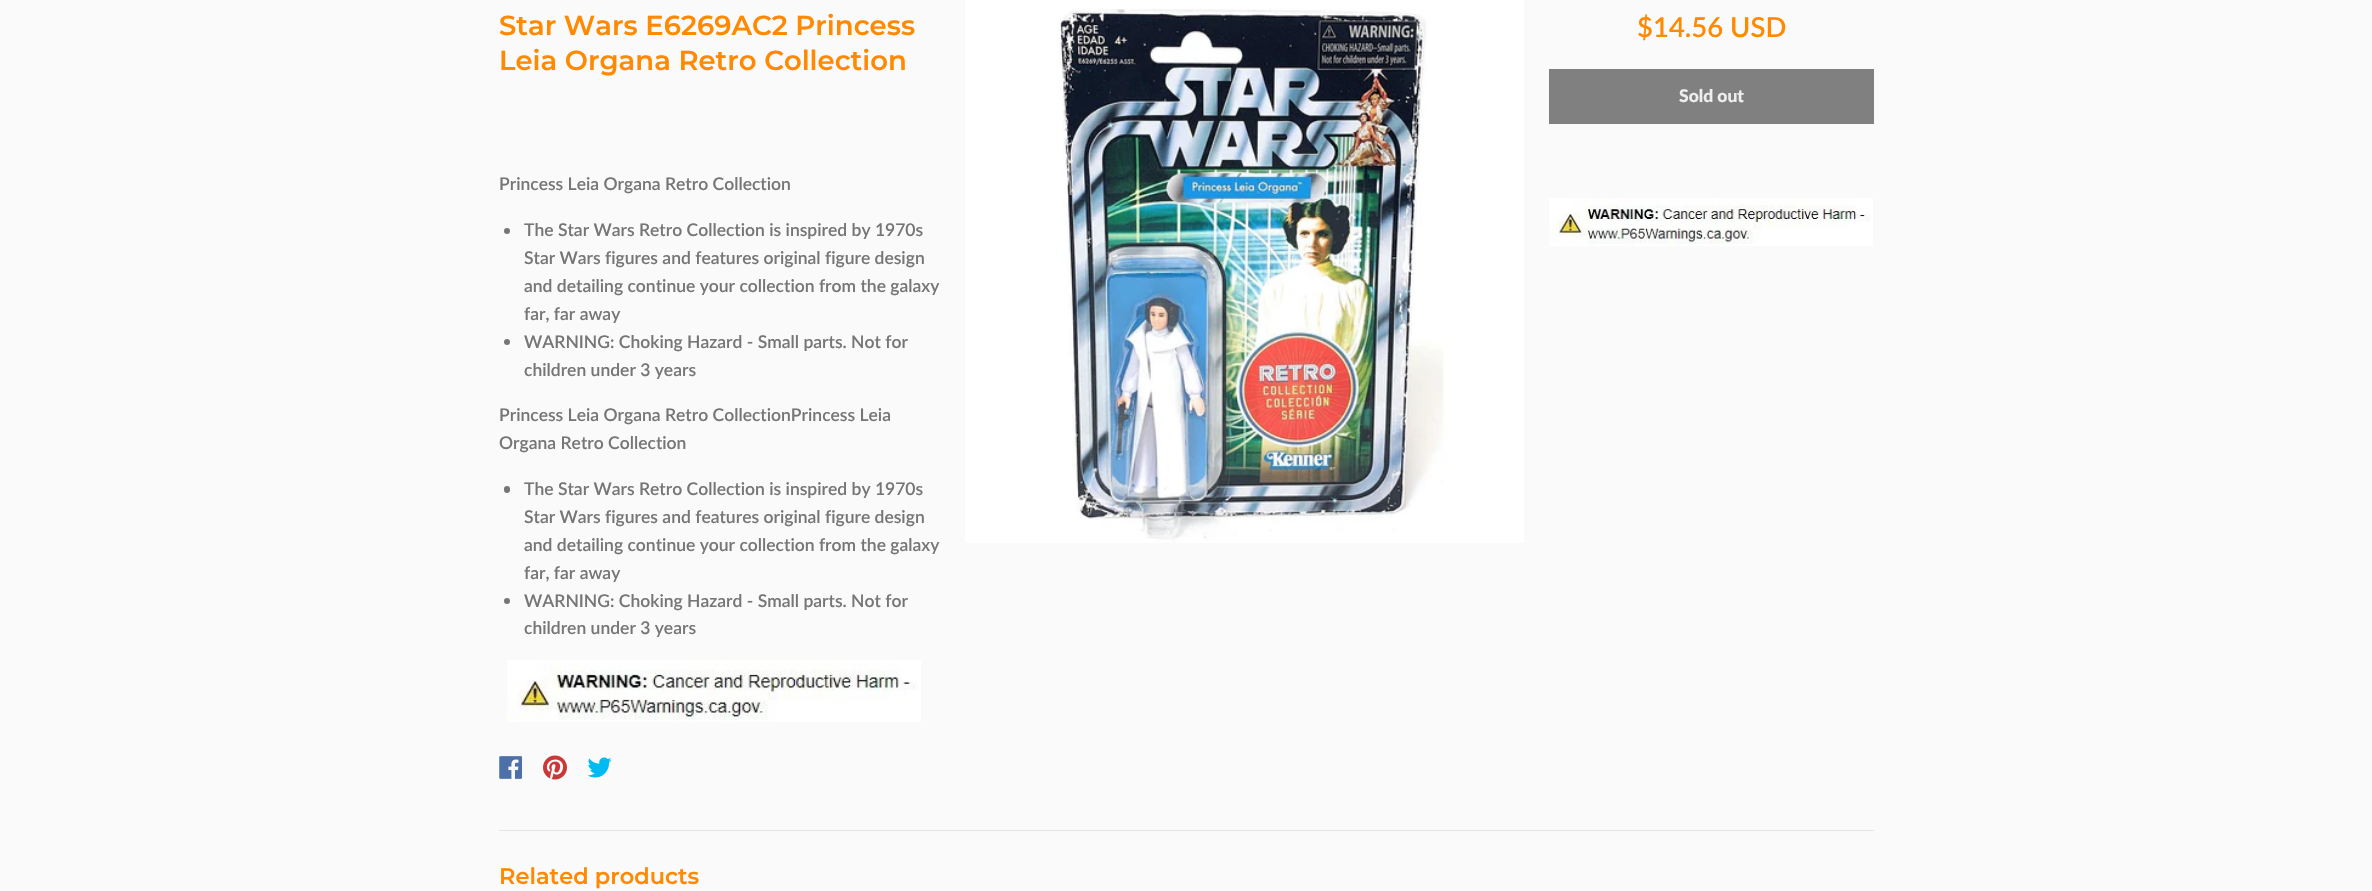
#include "include/core/SkBlurTypes.h"
#include "include/core/SkCanvas.h"
#include "include/core/SkData.h"
#include "include/core/SkFont.h"
#include "include/core/SkFontMgr.h"
#include "include/core/SkImage.h"
#include "include/core/SkMaskFilter.h"
#include "include/core/SkPaint.h"
#include "include/core/SkPathBuilder.h"
#include "include/core/SkTextBlob.h"
#include "include/effects/SkDashPathEffect.h"
#include "include/effects/SkGradientShader.h"
#include "include/utils/SkParsePath.h"

extern sk_sp<SkFontMgr> fontMgr;

void draw(SkCanvas* canvas) {
    SkPaint p;
    p.setAntiAlias(true);
    auto font = [&](const char* family, int weight, float size, bool italic = false) {
        SkFontStyle style(weight, SkFontStyle::kNormal_Width,
            italic ? SkFontStyle::kItalic_Slant : SkFontStyle::kUpright_Slant);
        SkFont result(fontMgr->matchFamilyStyle(family, style), size);
        result.setSubpixel(true);
        return result;
    };
    auto drawPhoto = [&](const char* path, float l, float t, float r, float b) {
        auto image = SkImages::DeferredFromEncodedData(SkData::MakeFromFileName(path));
        canvas->drawImageRect(image, SkRect::MakeLTRB(l, t, r, b), SkSamplingOptions());
    };
    canvas->clear(0xFFFAFAFA);
    auto font1 = font("Montserrat", 600, 27.5f);
    p.setColor(0xFFFF8900);
    canvas->drawString("Star Wars E6269AC2 Princess", 499, 35, font1, p);
    canvas->drawString("Leia Organa Retro Collection", 499, 70, font1, p);
    auto font2 = font("Lato", 600, 17.5f);
    p.setColor(0xFF767676);
    canvas->drawString("Princess Leia Organa Retro Collection", 499, 190, font2, p);
    canvas->drawCircle(507, 231, 3, p);
    {
        const struct { const char* s; float x, y; } items[] = {
            {"The Star Wars Retro Collection is inspired by 1970s", 524, 236},
            {"Star Wars figures and features original figure design", 524, 264},
            {"and detailing continue your collection from the galaxy", 524, 292},
            {"far, far away", 524, 320},
        };
        for (auto [s, x, y] : items) {
            canvas->drawString(s, x, y, font2, p);
        }
    }
    canvas->drawCircle(507, 342, 3, p);
    {
        const struct { const char* s; float x, y; } items[] = {
            {"WARNING: Choking Hazard - Small parts. Not for", 524, 348},
            {"children under 3 years", 524, 376},
            {"Princess Leia Organa Retro CollectionPrincess Leia", 499, 421},
            {"Organa Retro Collection", 499, 449},
        };
        for (auto [s, x, y] : items) {
            canvas->drawString(s, x, y, font2, p);
        }
    }
    canvas->drawRoundRect(SkRect::MakeLTRB(504, 486, 510, 493), 3, 3, p);
    {
        const struct { const char* s; float x, y; } items[] = {
            {"The Star Wars Retro Collection is inspired by 1970s", 524, 495},
            {"Star Wars figures and features original figure design", 524, 523},
            {"and detailing continue your collection from the galaxy", 524, 551},
            {"far, far away", 524, 579},
        };
        for (auto [s, x, y] : items) {
            canvas->drawString(s, x, y, font2, p);
        }
    }
    canvas->drawCircle(507, 601, 3, p);
    canvas->drawString("WARNING: Choking Hazard - Small parts. Not for", 524, 607, font2, p);
    canvas->drawString("children under 3 years", 524, 634, font2, p);
    drawPhoto("media/1.png", 507, 660, 921, 722);
    drawPhoto("media/2.png", 499, 756, 523, 779);
    drawPhoto("media/3.png", 543, 755, 567, 780);
    drawPhoto("media/4.png", 588, 757, 612, 778);
    drawPhoto("media/5.png", 965, 0, 1524, 543);
    auto font3 = font("Lato", 600, 27.5f);
    p.setColor(0xFFFF8900);
    canvas->drawString("$14.56 USD", 1637, 37, font3, p);
    p.setColor(0xFF808080);
    canvas->drawRect(SkRect::MakeLTRB(1549, 69, 1874, 124), p);
    auto font4 = font("Lato", 900, 17.5f);
    p.setColor(0xFFEEEEEE);
    canvas->drawString("Sold out", 1679, 102, font4, p);
    drawPhoto("media/6.png", 1549, 198, 1873, 246);
    p.setColor(0xFFE7E4E4);
    canvas->drawRect(SkRect::MakeLTRB(499, 830, 1874, 831), p);
    auto font5 = font("Montserrat", 600, 22.5f);
    p.setColor(0xFFFF8900);
    canvas->drawString("Related products", 499, 884, font5, p);
}
